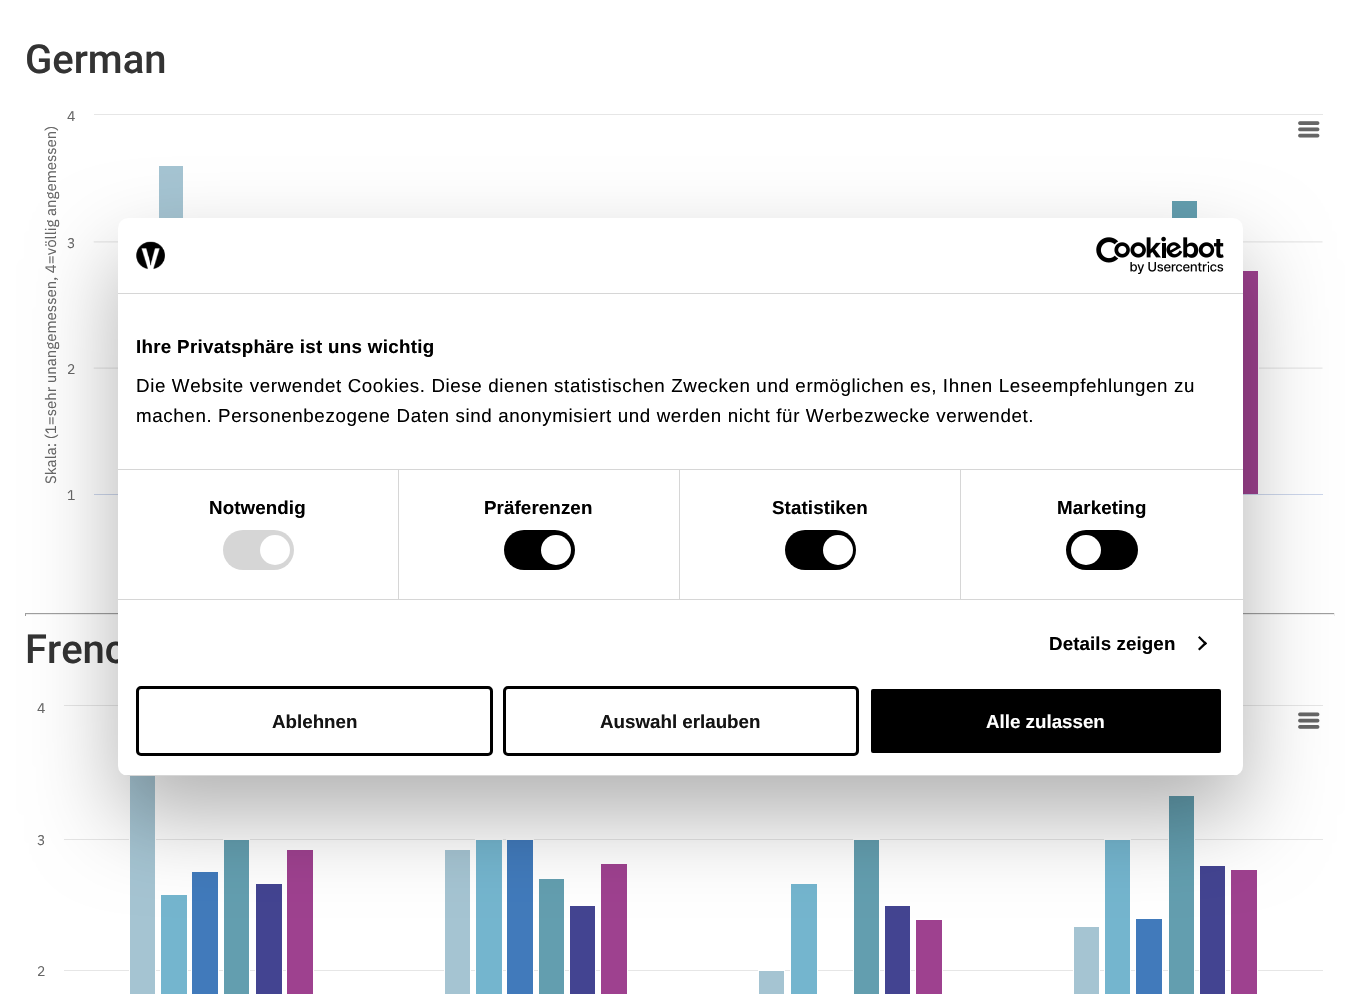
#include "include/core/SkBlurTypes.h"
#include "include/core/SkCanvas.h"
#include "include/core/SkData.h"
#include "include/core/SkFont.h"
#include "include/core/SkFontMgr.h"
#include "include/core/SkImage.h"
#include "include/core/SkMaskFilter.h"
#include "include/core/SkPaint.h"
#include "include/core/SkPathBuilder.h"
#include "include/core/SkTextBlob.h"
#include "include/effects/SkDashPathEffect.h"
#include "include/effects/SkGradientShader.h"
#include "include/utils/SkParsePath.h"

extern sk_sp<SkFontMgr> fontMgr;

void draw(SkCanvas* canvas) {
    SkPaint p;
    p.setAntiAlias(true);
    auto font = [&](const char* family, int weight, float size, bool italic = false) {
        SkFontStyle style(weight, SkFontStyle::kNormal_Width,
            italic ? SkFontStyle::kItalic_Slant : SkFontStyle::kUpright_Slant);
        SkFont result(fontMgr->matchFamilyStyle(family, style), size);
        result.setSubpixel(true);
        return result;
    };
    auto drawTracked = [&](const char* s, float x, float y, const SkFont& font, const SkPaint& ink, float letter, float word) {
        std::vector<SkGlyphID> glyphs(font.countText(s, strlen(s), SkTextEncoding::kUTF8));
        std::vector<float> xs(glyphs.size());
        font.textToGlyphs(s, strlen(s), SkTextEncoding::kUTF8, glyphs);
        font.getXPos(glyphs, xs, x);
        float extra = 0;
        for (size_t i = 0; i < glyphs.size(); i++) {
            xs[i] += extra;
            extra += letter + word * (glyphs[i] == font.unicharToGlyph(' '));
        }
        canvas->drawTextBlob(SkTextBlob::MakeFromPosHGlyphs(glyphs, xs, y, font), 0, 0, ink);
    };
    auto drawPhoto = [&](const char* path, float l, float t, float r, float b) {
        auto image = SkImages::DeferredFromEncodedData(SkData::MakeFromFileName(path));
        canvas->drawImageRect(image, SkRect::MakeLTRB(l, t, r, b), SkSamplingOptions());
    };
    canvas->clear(0xFFFFFFFF);
    auto font1 = font("Roboto", 500, 40);
    p.setColor(0xFF333333);
    canvas->drawString("German", 25, 73, font1, p);
    auto font2 = font("IBM Plex Sans", 400, 15);
    p.setColor(0xFF666666);
    canvas->save();
    canvas->rotate(-90, 56, 484);
    canvas->drawString("Skala: (1=sehr unangemessen, 4=völlig angemessen)", 56, 484, font2, p);
    canvas->restore();
    auto font3 = font("IBM Plex Sans", 400, 14);
    canvas->drawString("4", 67, 121, font3, p);
    drawPhoto("media/1.png", 93, 114, 1323, 575);
    {
        const struct { const char* s; float x, y; } items[] = {
            {"3", 67, 248},
            {"2", 67, 374},
            {"1", 67, 500},
        };
        for (auto [s, x, y] : items) {
            canvas->drawString(s, x, y, font3, p);
        }
    }
    {
        const struct { float l, t, r, b; SkColor color; } items[] = {
            {25, 613, 1335, 614, 0xFF9F9F9F},
            {1334, 613, 1335, 616, 0xFFEEEEEE},
            {25, 614, 1335, 615, 0xFFEEEEEE},
            {25, 613, 26, 616, 0xFF9F9F9F},
        };
        for (auto [l, t, r, b, color] : items) {
            p.setColor(color);
            canvas->drawRect(SkRect::MakeLTRB(l, t, r, b), p);
        }
    }
    p.setColor(0xFF333333);
    canvas->drawString("Frenc", 25, 663, font1, p);
    p.setColor(0xFF666666);
    canvas->drawString("4", 37, 713, font3, p);
    drawPhoto("media/2.png", 64, 705, 1323, 994);
    canvas->drawString("3", 37, 845, font3, p);
    canvas->drawString("2", 37, 976, font3, p);
    p.setColor(0x4D000000);
    p.setMaskFilter(SkMaskFilter::MakeBlur(kNormal_SkBlurStyle, 42.5f));
    canvas->drawRoundRect(SkRect::MakeLTRB(118, 258, 1243, 816), 10, 10, p);
    p.setMaskFilter(nullptr);
    p.setColor(0xFFFFFFFF);
    canvas->drawRoundRect(SkRect::MakeLTRB(118, 218, 1243, 776), 10, 10, p);
    p.setColor(0xFFD6D6D6);
    canvas->drawRect(SkRect::MakeLTRB(118, 293, 1243, 294), p);
    drawPhoto("media/3.png", 136, 241, 165, 270);
    drawPhoto("media/4.png", 1096, 236, 1224, 274);
    canvas->drawRect(SkRect::MakeLTRB(118, 469, 1243, 470), p);
    auto font4 = font("Liberation Sans", 700, 18.75f);
    p.setColor(0xFF000000);
    drawTracked("Ihre Privatsphäre ist uns wichtig", 136, 353, font4, p, 0.3f, 0);
    auto font5 = font("Liberation Sans", 400, 18.75f);
    drawTracked("Die Website verwendet Cookies. Diese dienen statistischen Zwecken und ermöglichen es, Ihnen Leseempfehlungen zu", 136, 392, font5, p, 0.62f, 0);
    drawTracked("machen. Personenbezogene Daten sind anonymisiert und werden nicht für Werbezwecke verwendet.", 136, 422, font5, p, 0.62f, 0);
    p.setColor(0xFFD6D6D6);
    canvas->drawRect(SkRect::MakeLTRB(118, 599, 1243, 600), p);
    canvas->drawRect(SkRect::MakeLTRB(398, 470, 399, 599), p);
    p.setColor(0xFF000000);
    drawTracked("Notwendig", 209, 514, font4, p, 0.1f, 0);
    p.setColor(0xFFD6D6D6);
    canvas->drawRoundRect(SkRect::MakeLTRB(223, 530, 294, 570), 20, 20, p);
    p.setColor(0xFFFFFFFF);
    canvas->drawCircle(275, 550, 15, p);
    p.setColor(0xFFD6D6D6);
    canvas->drawRect(SkRect::MakeLTRB(679, 470, 680, 599), p);
    p.setColor(0xFF000000);
    drawTracked("Präferenzen", 484, 514, font4, p, 0.1f, 0);
    canvas->drawRoundRect(SkRect::MakeLTRB(504, 530, 575, 570), 20, 20, p);
    p.setColor(0xFFFFFFFF);
    canvas->drawCircle(556, 550, 15, p);
    p.setColor(0xFFD6D6D6);
    canvas->drawRect(SkRect::MakeLTRB(960, 470, 961, 599), p);
    p.setColor(0xFF000000);
    drawTracked("Statistiken", 772, 514, font4, p, 0.1f, 0);
    canvas->drawRoundRect(SkRect::MakeLTRB(785, 530, 856, 570), 20, 20, p);
    p.setColor(0xFFFFFFFF);
    canvas->drawCircle(838, 550, 15, p);
    p.setColor(0xFF000000);
    drawTracked("Marketing", 1057, 514, font4, p, 0.1f, 0);
    canvas->drawRoundRect(SkRect::MakeLTRB(1066, 530, 1138, 570), 20, 20, p);
    p.setColor(0xFFFFFFFF);
    canvas->drawCircle(1086, 550, 15, p);
    p.setColor(0xFF000000);
    drawTracked("Details zeigen", 1049, 650, font4, p, 0.1f, 0);
    canvas->drawPath(SkPathBuilder().moveTo(1199.5f, 636).lineTo(1207, 643.5f).lineTo(1205.5f, 645).lineTo(1198, 637.5f).close().detach(), p);
    canvas->drawPath(SkPathBuilder().moveTo(1205.5f, 641.5f).lineTo(1207, 643.5f).lineTo(1199.5f, 650.5f).lineTo(1198, 649).close().detach(), p);
    canvas->save();
    canvas->clipPath(SkPathBuilder().moveTo(128, 218).lineTo(1233, 218).cubicTo(1238.5f, 218, 1243, 222.5f, 1243, 228).lineTo(1243, 766).cubicTo(1243, 771.5f, 1238.5f, 776, 1233, 776).lineTo(128, 776).cubicTo(122.5f, 776, 118, 771.5f, 118, 766).lineTo(118, 228).cubicTo(118, 222.5f, 122.5f, 218, 128, 218).close().detach(), true);
    p.setColor(0xFFD6D6D6);
    canvas->drawRect(SkRect::MakeLTRB(118, 775, 1243, 776), p);
    canvas->restore();
    p.setStyle(SkPaint::kStroke_Style);
    p.setStrokeWidth(3);
    p.setColor(0xFF000000);
    canvas->drawRoundRect(SkRect::MakeLTRB(137.5f, 687.5f, 491.5f, 754.5f), 3.5f, 3.5f, p);
    p.setStyle(SkPaint::kFill_Style);
    p.setColor(0xFF141414);
    canvas->drawString("Ablehnen", 272, 728, font4, p);
    p.setStyle(SkPaint::kStroke_Style);
    p.setColor(0xFF000000);
    canvas->drawRoundRect(SkRect::MakeLTRB(504.5f, 687.5f, 857.5f, 754.5f), 3.5f, 3.5f, p);
    p.setStyle(SkPaint::kFill_Style);
    p.setColor(0xFF141414);
    canvas->drawString("Auswahl erlauben", 600, 728, font4, p);
    p.setColor(0xFF000000);
    canvas->drawRoundRect(SkRect::MakeLTRB(869.5f, 687.5f, 1222.5f, 754.5f), 3.5f, 3.5f, p);
    p.setStyle(SkPaint::kStroke_Style);
    p.setColor(0xFFFFFFFF);
    canvas->drawRoundRect(SkRect::MakeLTRB(869.5f, 687.5f, 1222.5f, 754.5f), 3.5f, 3.5f, p);
    p.setStyle(SkPaint::kFill_Style);
    canvas->drawString("Alle zulassen", 986, 728, font4, p);
}
